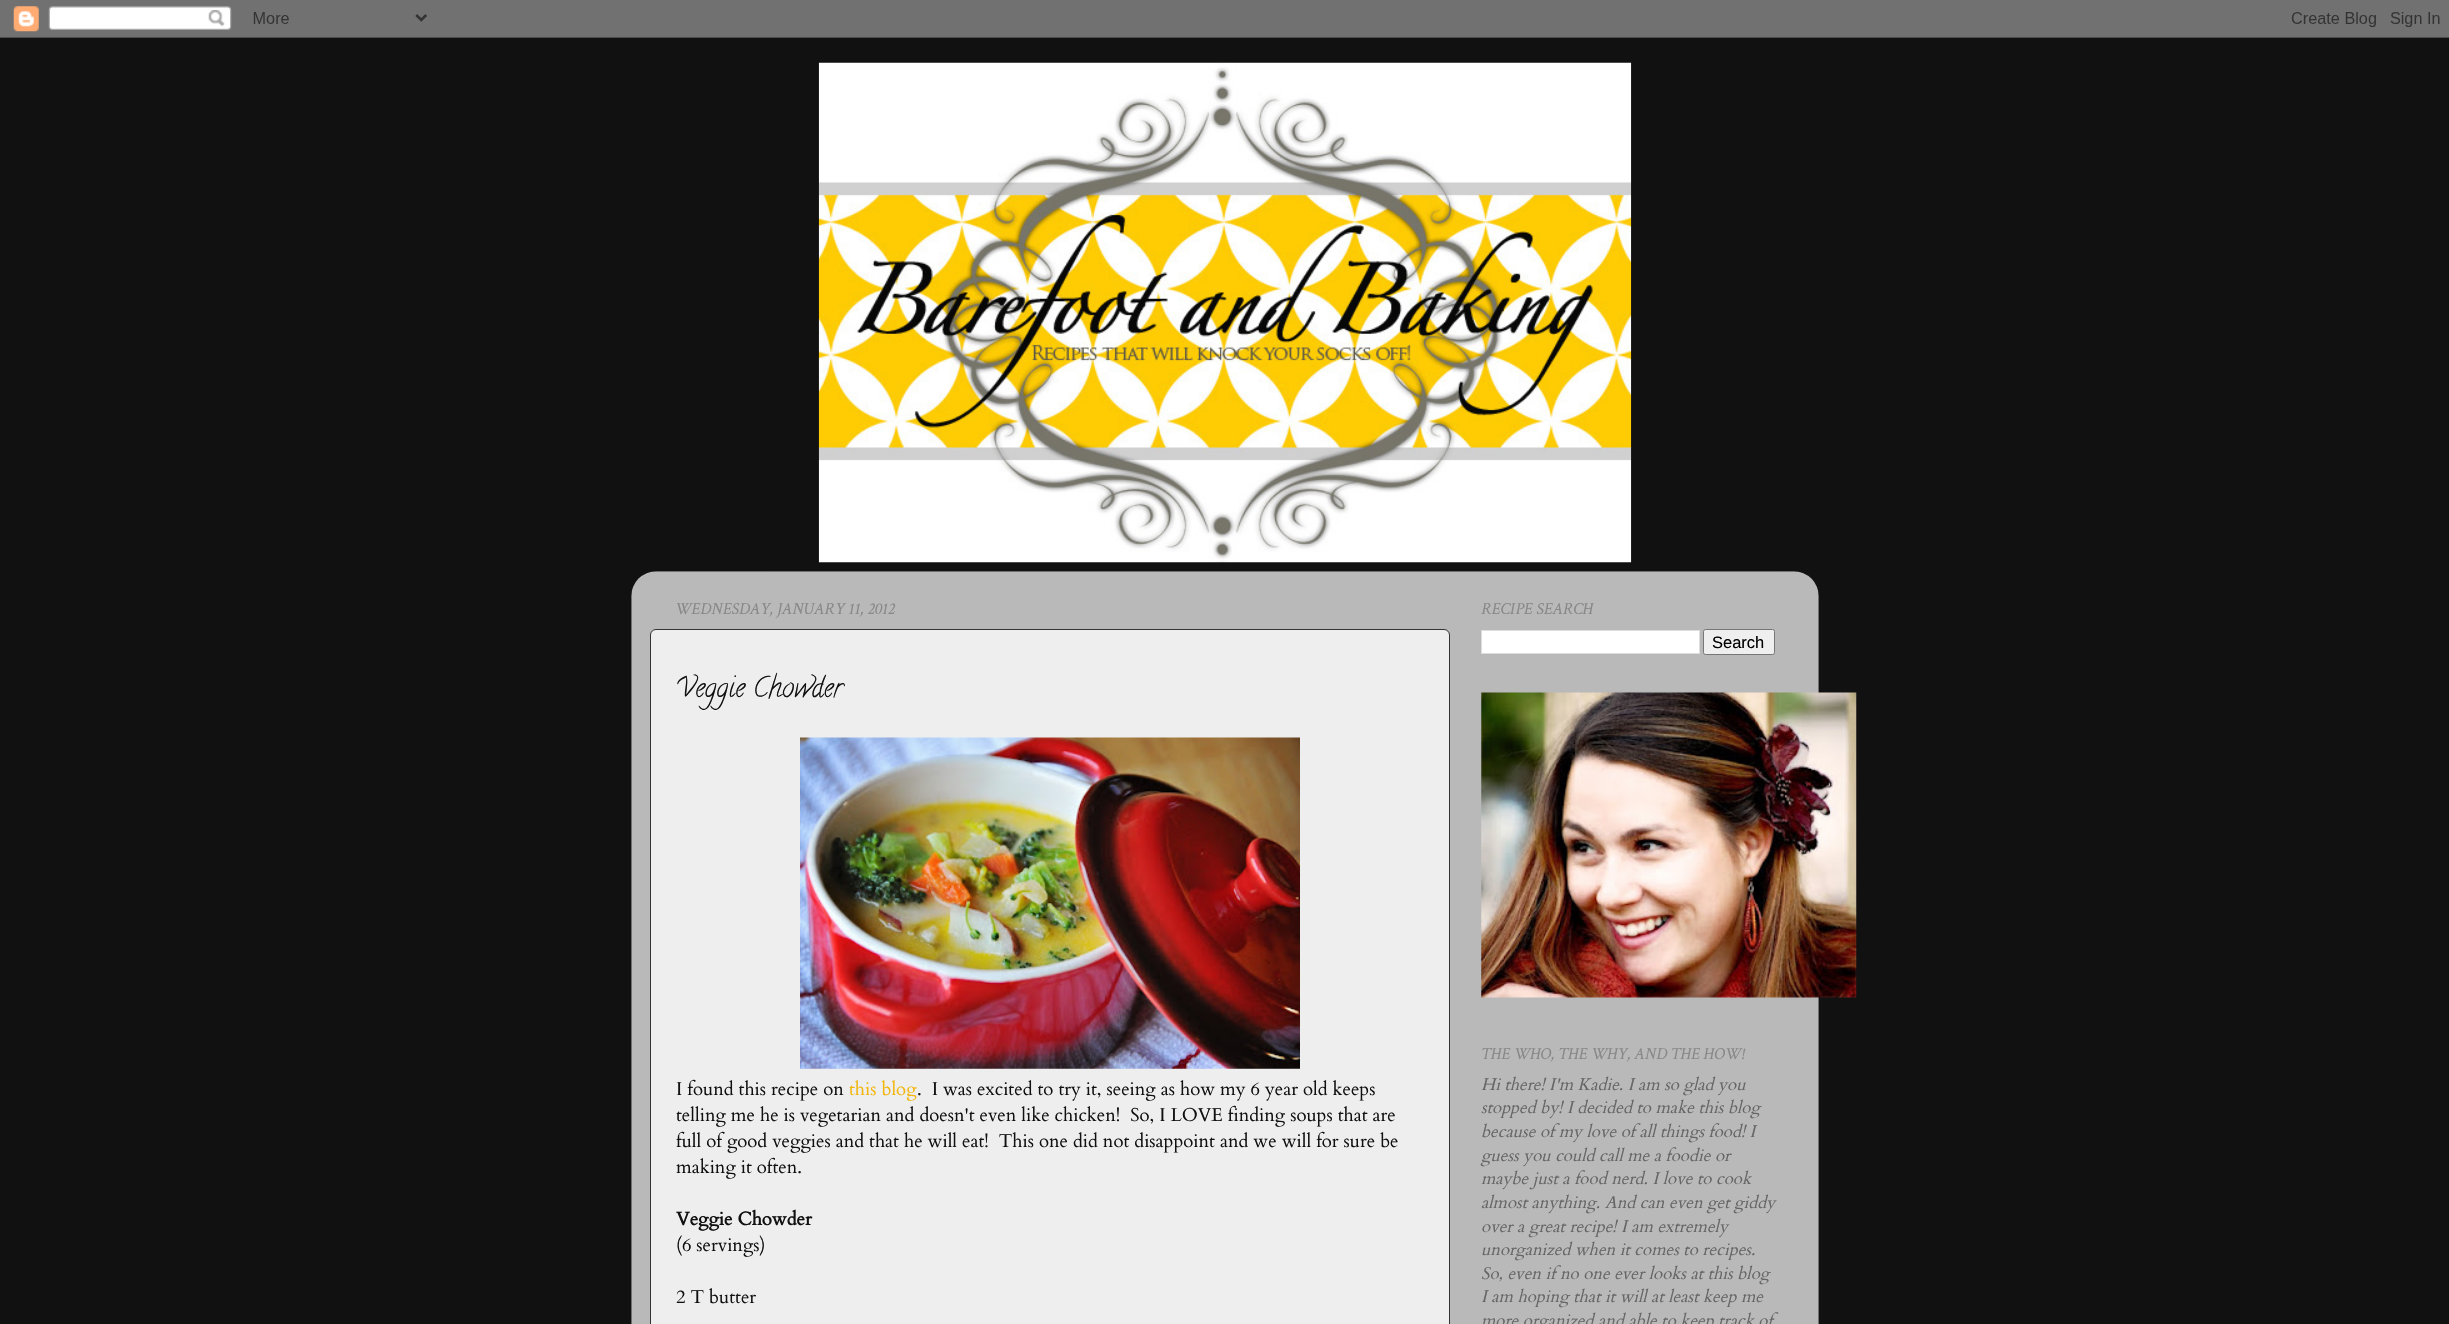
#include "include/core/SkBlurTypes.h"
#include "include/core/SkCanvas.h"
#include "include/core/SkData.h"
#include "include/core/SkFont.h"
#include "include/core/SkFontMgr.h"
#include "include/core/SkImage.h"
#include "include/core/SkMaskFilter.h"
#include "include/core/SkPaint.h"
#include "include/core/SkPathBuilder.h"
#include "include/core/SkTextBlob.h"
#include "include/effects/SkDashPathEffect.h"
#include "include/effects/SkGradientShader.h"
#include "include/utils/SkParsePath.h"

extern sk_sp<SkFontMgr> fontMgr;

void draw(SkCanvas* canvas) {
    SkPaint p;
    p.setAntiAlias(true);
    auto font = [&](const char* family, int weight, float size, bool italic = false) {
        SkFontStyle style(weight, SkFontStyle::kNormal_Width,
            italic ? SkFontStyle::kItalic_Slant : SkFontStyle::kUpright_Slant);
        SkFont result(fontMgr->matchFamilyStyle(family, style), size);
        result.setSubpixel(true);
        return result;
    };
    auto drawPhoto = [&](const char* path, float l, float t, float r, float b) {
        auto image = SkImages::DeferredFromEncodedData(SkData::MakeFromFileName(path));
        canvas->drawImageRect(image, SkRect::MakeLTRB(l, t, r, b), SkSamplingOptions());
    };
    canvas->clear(0xFF111111);
    drawPhoto("media/1.png", 0, 0, 2449, 38);
    drawPhoto("media/2.png", 818, 62, 1632, 563);
    drawPhoto("media/3.png", 631, 571, 1819, 1324);
    auto font1 = font("Crimson Text", 400, 16.9f, true);
    p.setColor(0xFF888888);
    canvas->drawString("WEDNESDAY, JANUARY 11, 2012", 675, 614, font1, p);
    p.setColor(0xFFEEEEEE);
    canvas->drawRoundRect(SkRect::MakeLTRB(650.5f, 629.5f, 1449.5f, 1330.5f), 5.5f, 5.5f, p);
    p.setStyle(SkPaint::kStroke_Style);
    p.setStrokeWidth(1);
    p.setColor(0xFF333333);
    canvas->drawRoundRect(SkRect::MakeLTRB(650.5f, 629.5f, 1449.5f, 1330.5f), 5.5f, 5.5f, p);
    auto font2 = font("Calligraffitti", 400, 27.5f);
    p.setStyle(SkPaint::kFill_Style);
    p.setColor(0xFF111111);
    canvas->drawString("Veggie Chowder", 676, 696, font2, p);
    drawPhoto("media/4.png", 800, 737, 1300, 1069);
    auto font3 = font("Cardo", 400, 18.55f);
    canvas->drawString("I found this recipe on", 676, 1095, font3, p);
    p.setColor(0xFFF2B60C);
    canvas->drawString("this blog", 849, 1095, font3, p);
    p.setColor(0xFF111111);
    {
        const struct { const char* s; float x, y; } items[] = {
            {".  I was excited to try it, seeing as how my 6 year old keeps", 917, 1095},
            {"telling me he is vegetarian and doesn't even like chicken!  So, I LOVE finding soups that are", 676, 1121},
            {"full of good veggies and that he will eat!  This one did not disappoint and we will for sure be", 676, 1147},
            {"making it often.", 676, 1173},
        };
        for (auto [s, x, y] : items) {
            canvas->drawString(s, x, y, font3, p);
        }
    }
    auto font4 = font("Cardo", 700, 18.55f);
    canvas->drawString("Veggie Chowder", 676, 1225, font4, p);
    canvas->drawString("(6 servings)", 676, 1251, font3, p);
    canvas->drawString("2 T butter", 676, 1303, font3, p);
    p.setColor(0xFF888888);
    canvas->drawString("RECIPE SEARCH", 1481, 614, font1, p);
    p.setColor(0xFFFFFFFF);
    canvas->drawRect(SkRect::MakeLTRB(1481.5f, 630.5f, 1699.5f, 653.5f), p);
    p.setStyle(SkPaint::kStroke_Style);
    p.setColor(0xFFDDDDDD);
    canvas->drawRect(SkRect::MakeLTRB(1481.5f, 630.5f, 1699.5f, 653.5f), p);
    p.setStyle(SkPaint::kFill_Style);
    p.setColor(0xFFEFEFEF);
    canvas->drawRoundRect(SkRect::MakeLTRB(1703.5f, 629.5f, 1774.5f, 654.5f), 2, 2, p);
    p.setStyle(SkPaint::kStroke_Style);
    p.setColor(0xFF767676);
    canvas->drawRoundRect(SkRect::MakeLTRB(1703.5f, 629.5f, 1774.5f, 654.5f), 2, 2, p);
    auto font5 = font("Liberation Sans", 400, 16.5f);
    p.setStyle(SkPaint::kFill_Style);
    p.setColor(0xFF000000);
    canvas->drawString("Search", 1712, 648, font5, p);
    drawPhoto("media/5.png", 1481, 692, 1857, 998);
    p.setColor(0xFF888888);
    canvas->drawString("THE WHO, THE WHY, AND THE HOW!", 1481, 1059, font1, p);
    auto font6 = font("Cardo", 400, 16.9f, true);
    p.setColor(0xFF666666);
    {
        const struct { const char* s; float x, y; } items[] = {
            {"Hi there! I'm Kadie. I am so glad you", 1481, 1090},
            {"stopped by! I decided to make this blog", 1481, 1113},
            {"because of my love of all things food! I", 1481, 1137},
            {"guess you could call me a foodie or", 1481, 1161},
            {"maybe just a food nerd. I love to cook", 1481, 1184},
            {"almost anything. And can even get giddy", 1481, 1208},
            {"over a great recipe! I am extremely", 1481, 1232},
            {"unorganized when it comes to recipes.", 1481, 1255},
            {"So, even if no one ever looks at this blog", 1481, 1279},
            {"I am hoping that it will at least keep me", 1481, 1302},
            {"more organized and able to keep track of", 1481, 1326},
        };
        for (auto [s, x, y] : items) {
            canvas->drawString(s, x, y, font6, p);
        }
    }
}
